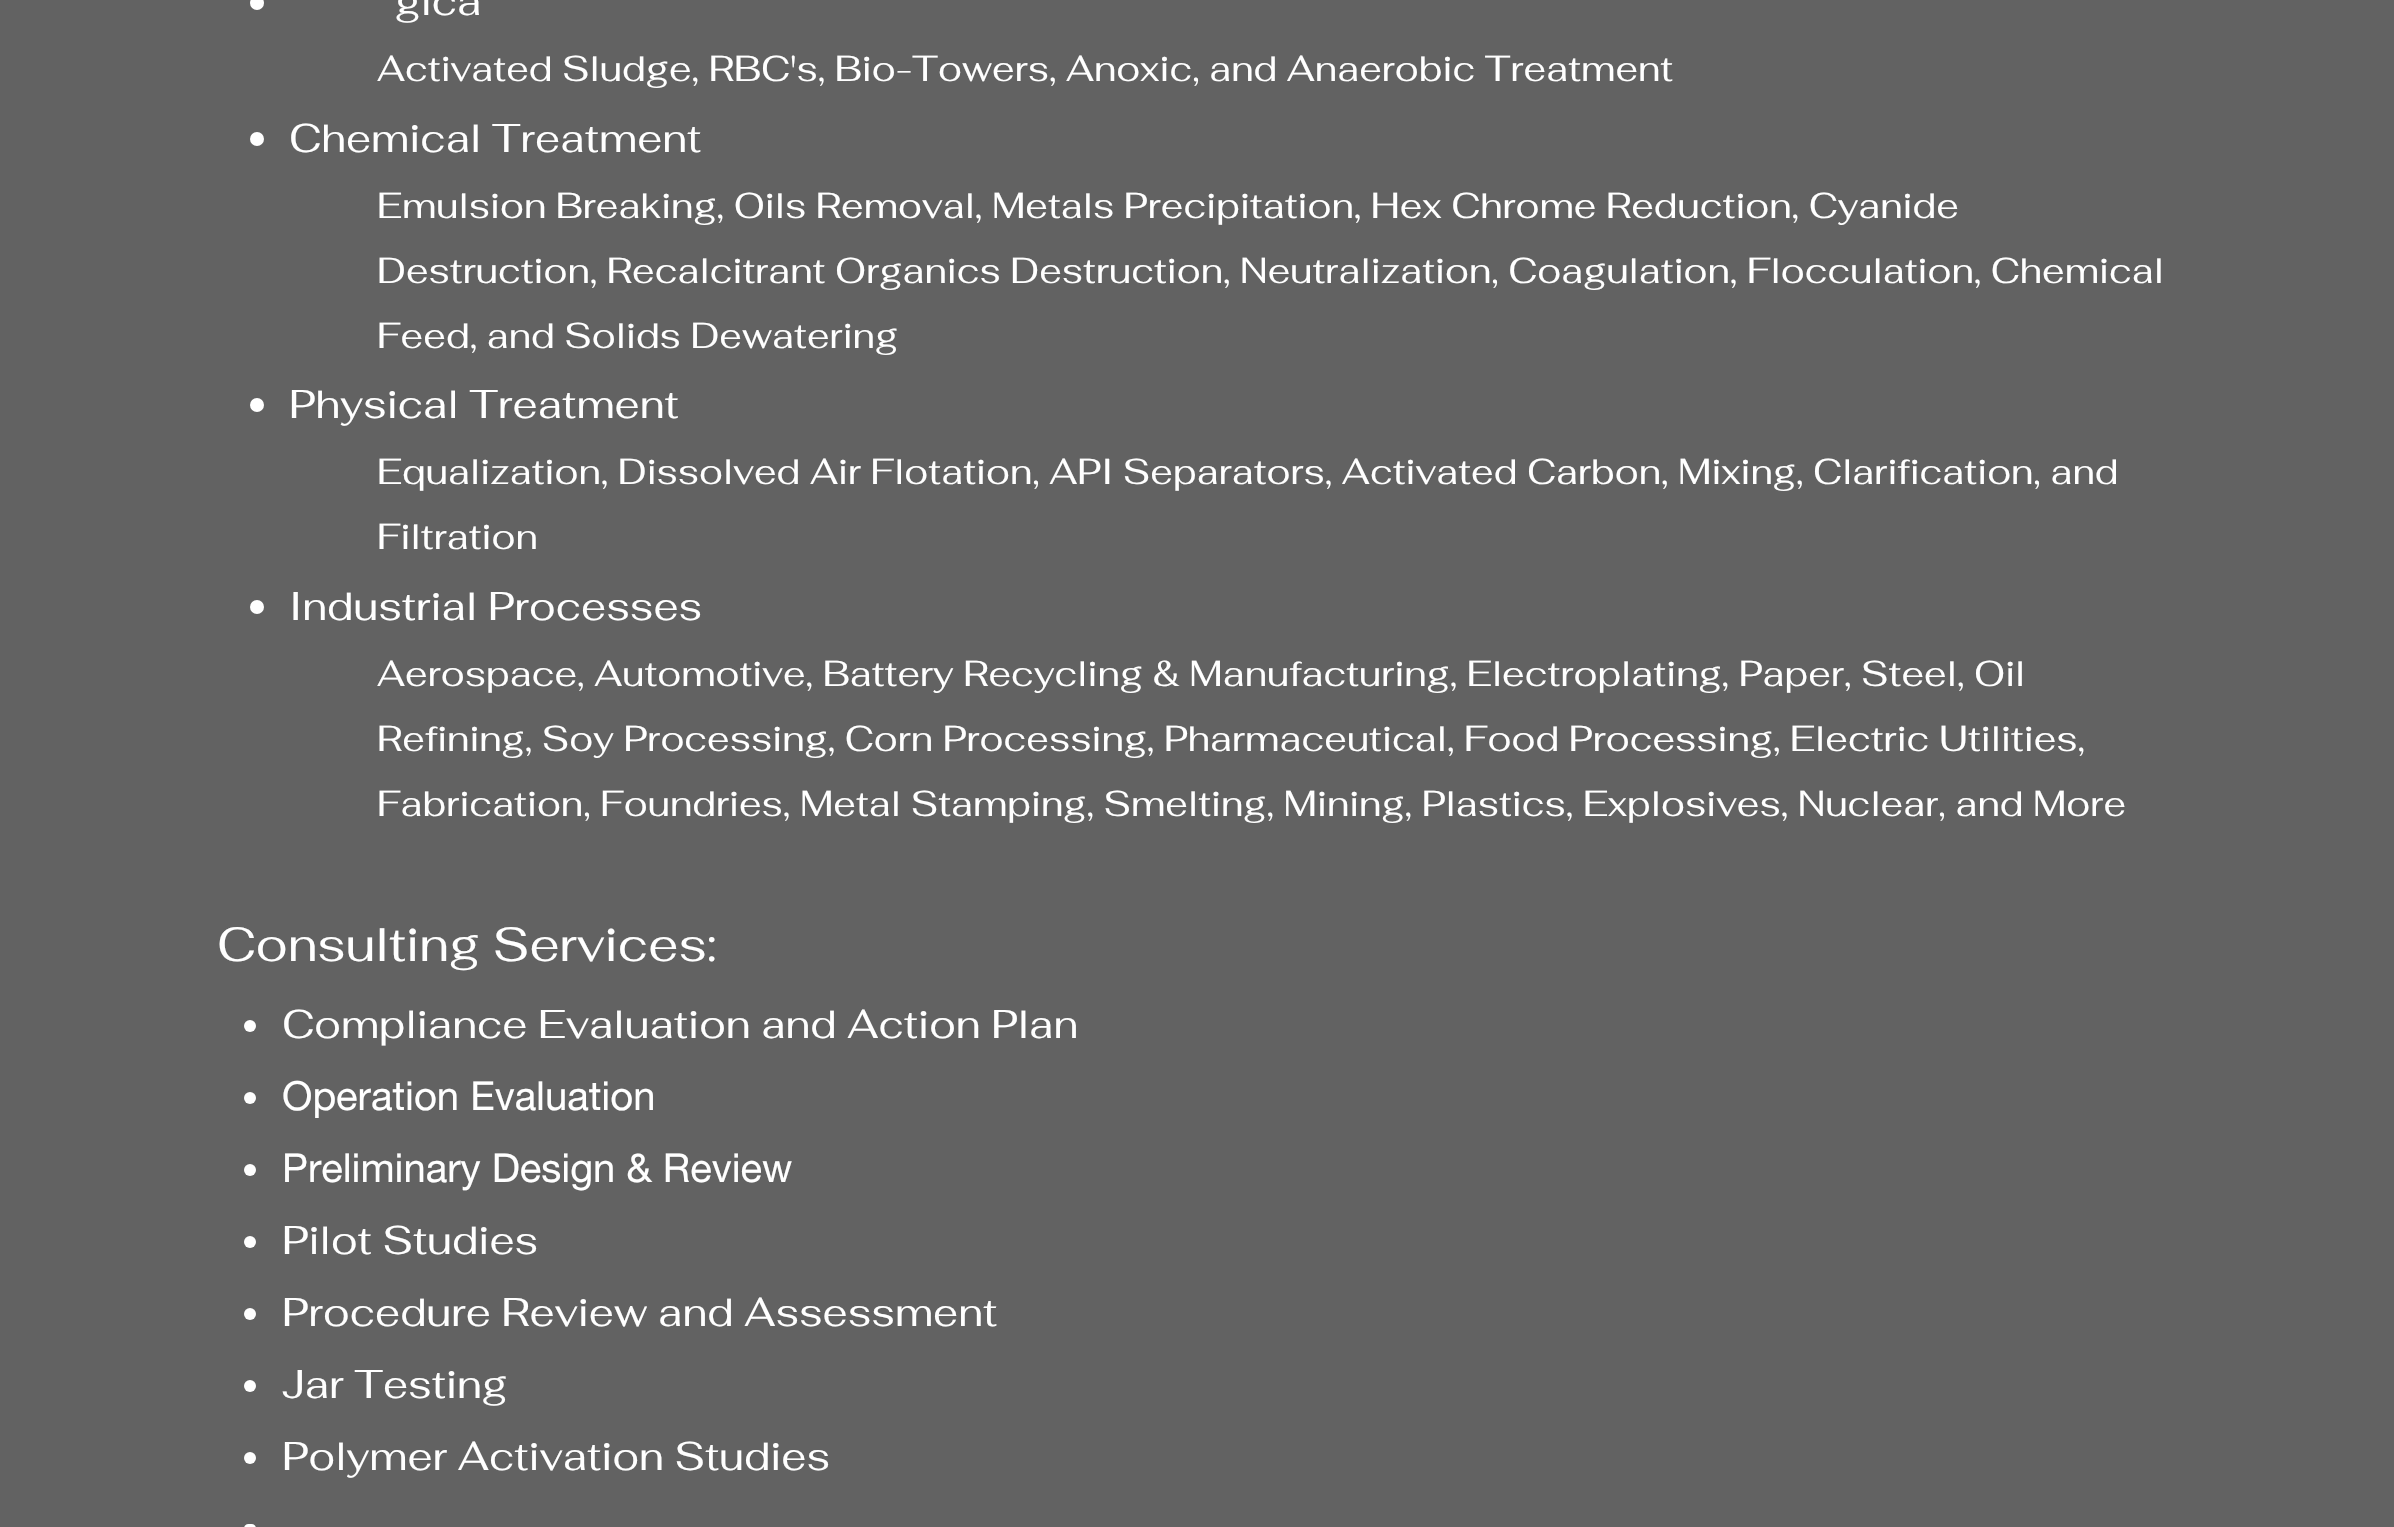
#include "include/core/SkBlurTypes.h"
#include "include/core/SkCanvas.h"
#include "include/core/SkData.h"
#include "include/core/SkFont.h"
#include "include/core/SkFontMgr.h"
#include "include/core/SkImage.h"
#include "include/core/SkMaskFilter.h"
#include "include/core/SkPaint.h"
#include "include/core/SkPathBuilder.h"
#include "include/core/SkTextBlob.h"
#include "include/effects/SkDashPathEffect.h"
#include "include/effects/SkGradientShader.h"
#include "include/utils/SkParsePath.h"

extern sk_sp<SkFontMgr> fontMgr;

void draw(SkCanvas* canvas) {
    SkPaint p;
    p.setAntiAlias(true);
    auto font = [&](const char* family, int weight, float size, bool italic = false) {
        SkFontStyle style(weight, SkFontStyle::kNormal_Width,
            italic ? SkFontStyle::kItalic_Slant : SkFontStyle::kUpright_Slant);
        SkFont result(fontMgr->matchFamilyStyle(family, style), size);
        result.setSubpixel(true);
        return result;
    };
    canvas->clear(0xFF626262);
    p.setColor(0xFFFFFFFF);
    canvas->drawCircle(257, 3, 7, p);
    auto font1 = font("Fahkwang", 400, 40);
    canvas->drawString("gica", 395, 15, font1, p);
    auto font2 = font("Fahkwang", 400, 36);
    canvas->drawString("Activated Sludge, RBC's, Bio-Towers, Anoxic, and Anaerobic Treatment", 377, 81, font2, p);
    canvas->drawCircle(257, 139, 7, p);
    canvas->drawString("Chemical Treatment", 289, 152, font1, p);
    {
        const struct { const char* s; float x, y; } items[] = {
            {"Emulsion Breaking, Oils Removal, Metals Precipitation, Hex Chrome Reduction, Cyanide", 377, 218},
            {"Destruction, Recalcitrant Organics Destruction, Neutralization, Coagulation, Flocculation, Chemical", 377, 283},
            {"Feed, and Solids Dewatering", 377, 348},
        };
        for (auto [s, x, y] : items) {
            canvas->drawString(s, x, y, font2, p);
        }
    }
    canvas->drawCircle(257, 405, 7, p);
    canvas->drawString("Physical Treatment", 289, 418, font1, p);
    canvas->drawString("Equalization, Dissolved Air Flotation, API Separators, Activated Carbon, Mixing, Clarification, and", 377, 484, font2, p);
    canvas->drawString("Filtration", 377, 549, font2, p);
    canvas->drawCircle(257, 607, 7, p);
    canvas->drawString("Industrial Processes", 289, 620, font1, p);
    {
        const struct { const char* s; float x, y; } items[] = {
            {"Aerospace, Automotive, Battery Recycling & Manufacturing, Electroplating, Paper, Steel, Oil", 377, 686},
            {"Refining, Soy Processing, Corn Processing, Pharmaceutical, Food Processing, Electric Utilities,", 377, 751},
            {"Fabrication, Foundries, Metal Stamping, Smelting, Mining, Plastics, Explosives, Nuclear, and More", 377, 816},
        };
        for (auto [s, x, y] : items) {
            canvas->drawString(s, x, y, font2, p);
        }
    }
    auto font3 = font("Fahkwang", 400, 48);
    canvas->drawString("Consulting Services:", 217, 961, font3, p);
    canvas->drawCircle(250, 1026, 6, p);
    canvas->drawString("Compliance Evaluation and Action Plan", 282, 1038, font1, p);
    canvas->drawCircle(250, 1098, 6, p);
    auto font4 = font("helvetica neue", 400, 40);
    canvas->drawString("Operation Evaluation", 282, 1110, font4, p);
    canvas->drawCircle(250, 1170, 6, p);
    canvas->drawString("Preliminary Design & Review", 282, 1182, font4, p);
    canvas->drawCircle(250, 1242, 6, p);
    canvas->drawString("Pilot Studies", 282, 1254, font1, p);
    canvas->drawCircle(250, 1314, 6, p);
    canvas->drawString("Procedure Review and Assessment", 282, 1326, font1, p);
    canvas->drawCircle(250, 1386, 6, p);
    canvas->drawString("Jar Testing", 282, 1398, font1, p);
    canvas->drawCircle(250, 1458, 6, p);
    canvas->drawString("Polymer Activation Studies", 282, 1470, font1, p);
    canvas->drawRoundRect(SkRect::MakeLTRB(244, 1524, 256, 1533), 6, 6, p);
}
